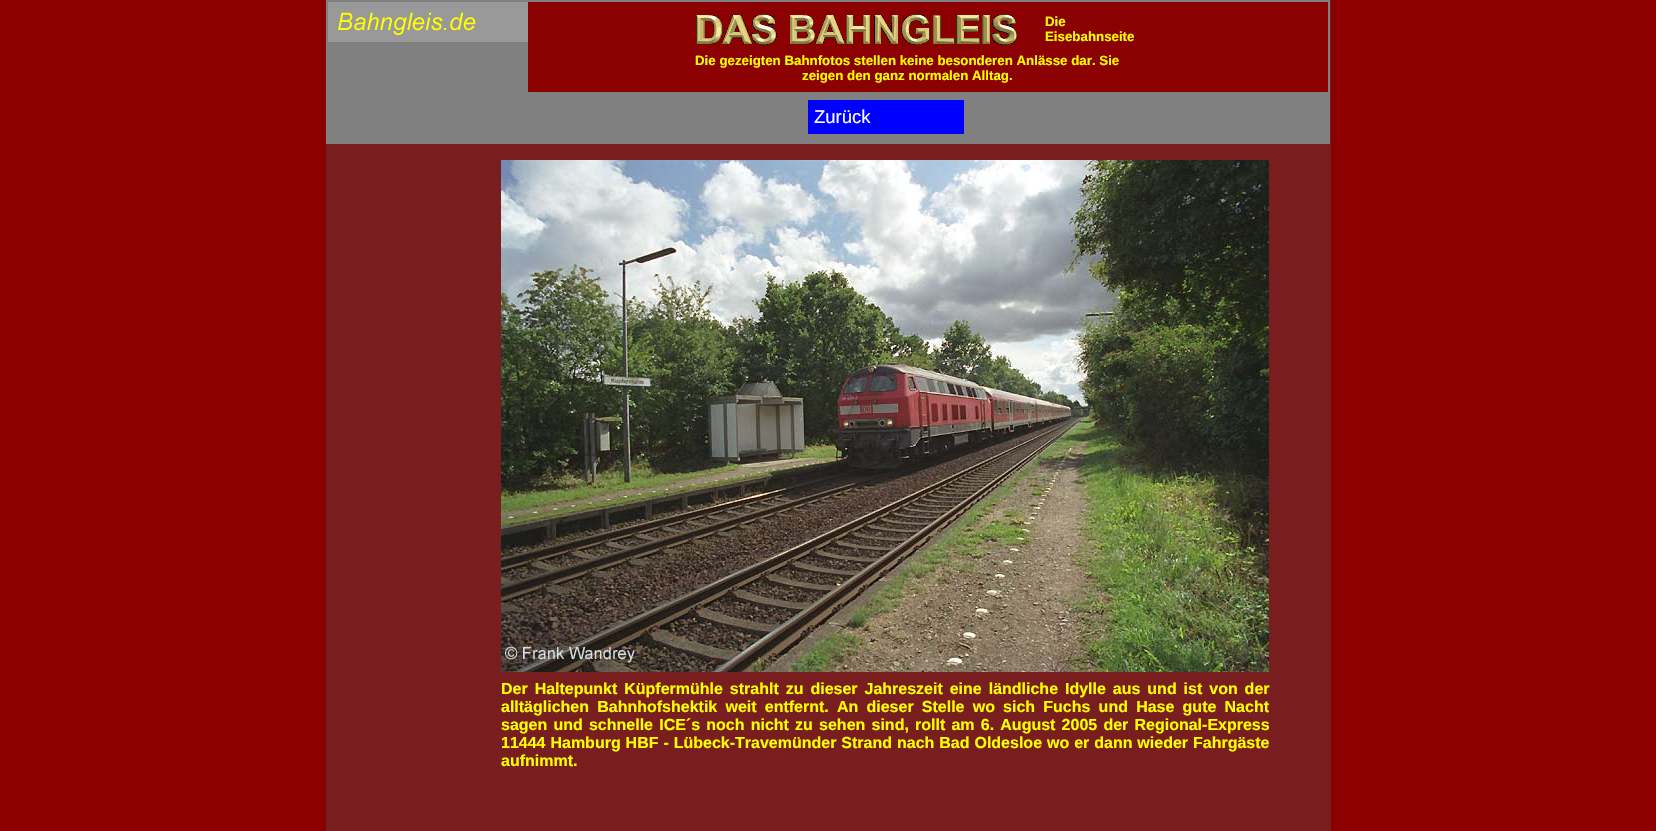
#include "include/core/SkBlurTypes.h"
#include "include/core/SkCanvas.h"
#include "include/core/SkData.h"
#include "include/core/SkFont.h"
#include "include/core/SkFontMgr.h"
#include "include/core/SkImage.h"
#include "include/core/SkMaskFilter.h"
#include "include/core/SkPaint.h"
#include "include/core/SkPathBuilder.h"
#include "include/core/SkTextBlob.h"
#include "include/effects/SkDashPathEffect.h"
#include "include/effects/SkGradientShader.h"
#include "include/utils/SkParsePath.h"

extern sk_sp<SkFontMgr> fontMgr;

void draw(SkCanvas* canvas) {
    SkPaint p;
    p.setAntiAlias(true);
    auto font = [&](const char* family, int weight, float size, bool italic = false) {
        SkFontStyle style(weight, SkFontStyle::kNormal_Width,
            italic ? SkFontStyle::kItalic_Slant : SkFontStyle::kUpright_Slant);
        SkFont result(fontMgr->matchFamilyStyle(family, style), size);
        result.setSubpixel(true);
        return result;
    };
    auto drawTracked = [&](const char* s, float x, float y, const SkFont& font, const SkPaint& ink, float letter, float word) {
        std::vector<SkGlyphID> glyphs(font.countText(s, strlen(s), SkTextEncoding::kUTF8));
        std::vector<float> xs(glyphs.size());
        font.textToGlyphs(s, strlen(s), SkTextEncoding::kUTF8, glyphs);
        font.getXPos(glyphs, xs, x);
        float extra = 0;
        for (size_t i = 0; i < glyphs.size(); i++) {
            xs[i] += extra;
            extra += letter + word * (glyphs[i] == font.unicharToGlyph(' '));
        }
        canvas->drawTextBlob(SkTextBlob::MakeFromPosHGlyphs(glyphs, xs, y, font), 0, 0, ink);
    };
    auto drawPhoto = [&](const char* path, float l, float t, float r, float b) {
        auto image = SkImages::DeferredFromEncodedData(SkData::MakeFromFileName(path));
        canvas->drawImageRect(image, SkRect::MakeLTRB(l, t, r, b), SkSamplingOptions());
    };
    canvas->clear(0xFF8D0000);
    p.setColor(0xFF781E1E);
    canvas->drawRect(SkRect::MakeLTRB(326, 0, 1331, 831), p);
    p.setColor(0xFF8B0000);
    canvas->drawRect(SkRect::MakeLTRB(528, 2, 1328, 92), p);
    p.setStyle(SkPaint::kStroke_Style);
    p.setStrokeWidth(2);
    p.setColor(0xFF808080);
    canvas->drawRect(SkRect::MakeLTRB(327, 1, 1329, 143), p);
    drawPhoto("media/1.png", 328, 2, 528, 42);
    drawPhoto("media/2.png", 696, 14, 1017, 45);
    auto font1 = font("Liberation Sans", 700, 13.3f);
    p.setStyle(SkPaint::kFill_Style);
    p.setColor(0xFFFFFF00);
    {
        const struct { const char* s; float x, y; } items[] = {
            {"Die", 1045, 26},
            {"Eisebahnseite", 1045, 41},
            {"Die gezeigten Bahnfotos stellen keine besonderen Anlässe dar. Sie", 695, 65},
            {"zeigen den ganz normalen Alltag.", 802, 80},
        };
        for (auto [s, x, y] : items) {
            canvas->drawString(s, x, y, font1, p);
        }
    }
    {
        const struct { float l, t, r, b; SkColor color; } items[] = {
            {328, 42, 528, 92, 0xFF808080},
            {328, 92, 1328, 142, 0xFF808080},
            {808, 100, 964, 134, 0xFF0000FF},
        };
        for (auto [l, t, r, b, color] : items) {
            p.setColor(color);
            canvas->drawRect(SkRect::MakeLTRB(l, t, r, b), p);
        }
    }
    auto font2 = font("Liberation Sans", 400, 18.5f);
    p.setColor(0xFFFFFFFF);
    canvas->drawString("Zurück", 814, 123, font2, p);
    drawPhoto("media/3.png", 501, 160, 1269, 672);
    auto font3 = font("Liberation Sans", 700, 16);
    p.setColor(0xFFFFFF00);
    drawTracked("Der Haltepunkt Küpfermühle strahlt zu dieser Jahreszeit eine ländliche Idylle aus und ist von der", 501, 694, font3, p, 0, 2.5f);
    drawTracked("alltäglichen Bahnhofshektik weit entfernt. An dieser Stelle wo sich Fuchs und Hase gute Nacht", 501, 712, font3, p, 0, 3.75f);
    drawTracked("sagen und schnelle ICE´s noch nicht zu sehen sind, rollt am 6. August 2005 der Regional-Express", 501, 730, font3, p, 0, 1.75f);
    drawTracked("11444 Hamburg HBF - Lübeck-Travemünder Strand nach Bad Oldesloe wo er dann wieder Fahrgäste", 501, 748, font3, p, 0, 0.5f);
    canvas->drawString("aufnimmt.", 501, 766, font3, p);
}
